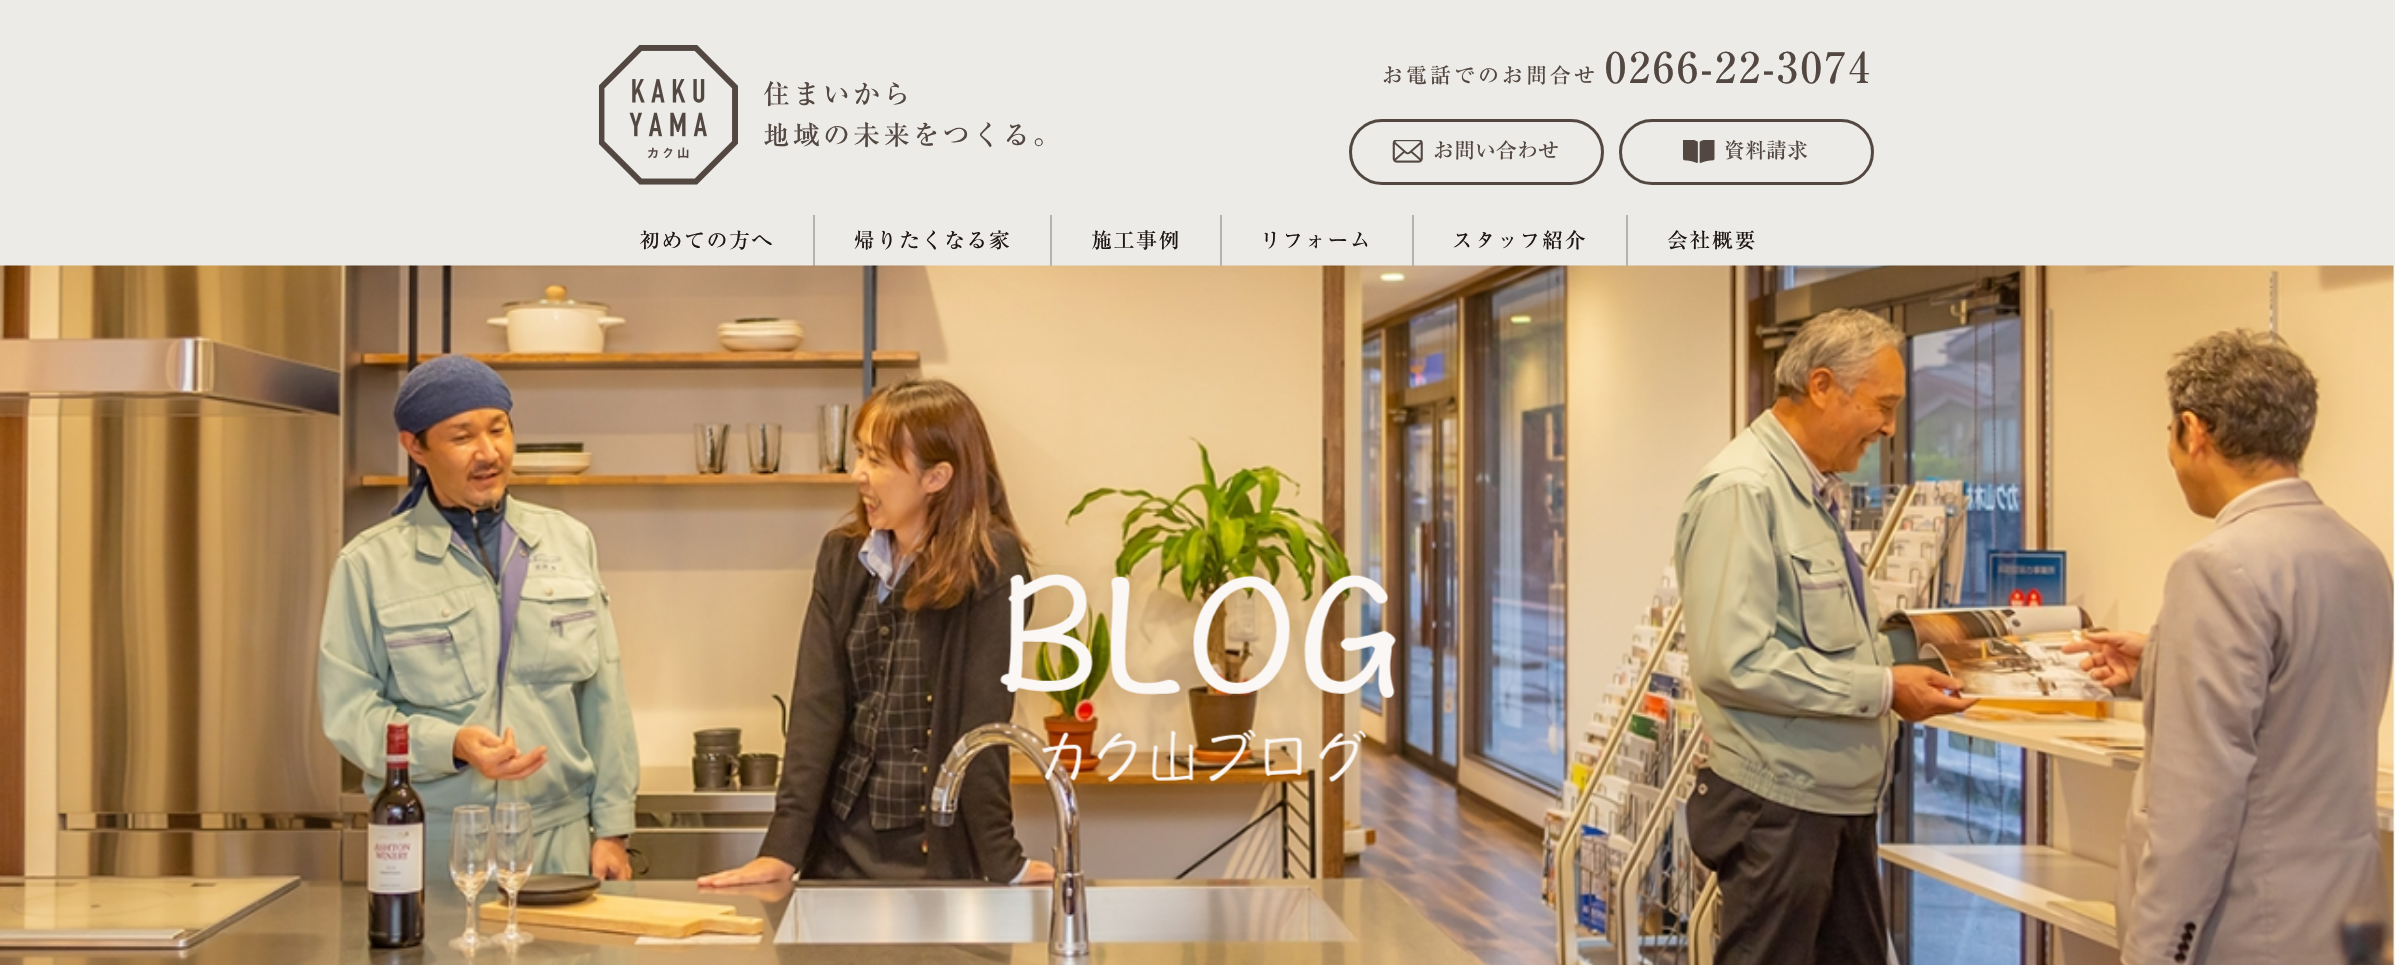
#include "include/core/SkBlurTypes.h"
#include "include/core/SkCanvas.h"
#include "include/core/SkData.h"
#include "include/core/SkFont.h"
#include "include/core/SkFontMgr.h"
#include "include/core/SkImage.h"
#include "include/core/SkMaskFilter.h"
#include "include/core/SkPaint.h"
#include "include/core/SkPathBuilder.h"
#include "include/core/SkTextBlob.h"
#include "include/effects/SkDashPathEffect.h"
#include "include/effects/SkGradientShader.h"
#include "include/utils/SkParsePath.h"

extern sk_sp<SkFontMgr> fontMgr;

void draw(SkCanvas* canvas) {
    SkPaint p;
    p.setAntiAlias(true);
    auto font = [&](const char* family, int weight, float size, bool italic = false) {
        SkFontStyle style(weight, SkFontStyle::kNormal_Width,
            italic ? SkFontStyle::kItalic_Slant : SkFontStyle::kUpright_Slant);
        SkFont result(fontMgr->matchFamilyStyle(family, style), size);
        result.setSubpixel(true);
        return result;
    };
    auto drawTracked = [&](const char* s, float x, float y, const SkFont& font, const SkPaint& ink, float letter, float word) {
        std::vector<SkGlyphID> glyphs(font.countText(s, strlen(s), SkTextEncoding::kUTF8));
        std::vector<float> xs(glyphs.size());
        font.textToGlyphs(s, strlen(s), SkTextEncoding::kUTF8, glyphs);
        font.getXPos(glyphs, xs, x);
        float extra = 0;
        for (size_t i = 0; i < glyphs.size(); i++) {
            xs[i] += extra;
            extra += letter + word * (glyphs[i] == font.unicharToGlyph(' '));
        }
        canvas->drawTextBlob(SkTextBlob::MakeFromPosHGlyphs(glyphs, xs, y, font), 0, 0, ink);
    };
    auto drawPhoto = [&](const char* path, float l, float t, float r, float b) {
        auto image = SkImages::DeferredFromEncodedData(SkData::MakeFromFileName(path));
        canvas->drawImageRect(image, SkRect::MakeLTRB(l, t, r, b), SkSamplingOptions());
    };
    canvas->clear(0xFFEDEBE7);
    drawPhoto("media/1.png", 599, 45, 738, 185);
    auto font1 = font("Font", 400, 27);
    p.setColor(0xFF534741);
    drawTracked("住まいから", 763, 104, font1, p, 3, 0);
    drawTracked("地域の未来をつくる。", 763, 145, font1, p, 3, 0);
    auto font2 = font("Font", 400, 21);
    drawTracked("お電話でのお問合せ", 1382, 83, font2, p, 3, 0);
    auto font3 = font("Font", 400, 42);
    drawTracked("0266-22-3074", 1605, 83, font3, p, 3, 0);
    p.setStyle(SkPaint::kStroke_Style);
    p.setStrokeWidth(3);
    canvas->drawRoundRect(SkRect::MakeLTRB(1350.5f, 120.5f, 1602.5f, 183.5f), 31.5f, 31.5f, p);
    drawPhoto("media/2.png", 1392, 140, 1423, 163);
    p.setStyle(SkPaint::kFill_Style);
    canvas->drawString("お問い合わせ", 1433, 158, font2, p);
    p.setStyle(SkPaint::kStroke_Style);
    canvas->drawRoundRect(SkRect::MakeLTRB(1620.5f, 120.5f, 1872.5f, 183.5f), 31.5f, 31.5f, p);
    drawPhoto("media/3.png", 1683, 140, 1715, 163);
    p.setStyle(SkPaint::kFill_Style);
    canvas->drawString("資料請求", 1724, 158, font2, p);
    p.setColor(0xFFB3B3B3);
    canvas->drawRect(SkRect::MakeLTRB(813, 215, 815, 266), p);
    p.setColor(0xFF1F1715);
    drawTracked("初めての方へ", 639, 248, font2, p, 1.5f, 0);
    p.setColor(0xFFB3B3B3);
    canvas->drawRect(SkRect::MakeLTRB(1050, 215, 1052, 266), p);
    p.setColor(0xFF1F1715);
    drawTracked("帰りたくなる家", 854, 248, font2, p, 1.5f, 0);
    p.setColor(0xFFB3B3B3);
    canvas->drawRect(SkRect::MakeLTRB(1220, 215, 1222, 266), p);
    p.setColor(0xFF1F1715);
    drawTracked("施工事例", 1091, 248, font2, p, 1.5f, 0);
    p.setColor(0xFFB3B3B3);
    canvas->drawRect(SkRect::MakeLTRB(1412, 215, 1414, 266), p);
    p.setColor(0xFF1F1715);
    drawTracked("リフォーム", 1260, 248, font2, p, 1.5f, 0);
    p.setColor(0xFFB3B3B3);
    canvas->drawRect(SkRect::MakeLTRB(1626, 215, 1628, 266), p);
    p.setColor(0xFF1F1715);
    drawTracked("スタッフ紹介", 1452, 248, font2, p, 1.5f, 0);
    drawTracked("会社概要", 1667, 248, font2, p, 1.5f, 0);
    drawPhoto("media/4.png", 0, 265, 2395, 965);
    drawPhoto("media/5.png", 1000, 565, 1398, 782);
}
